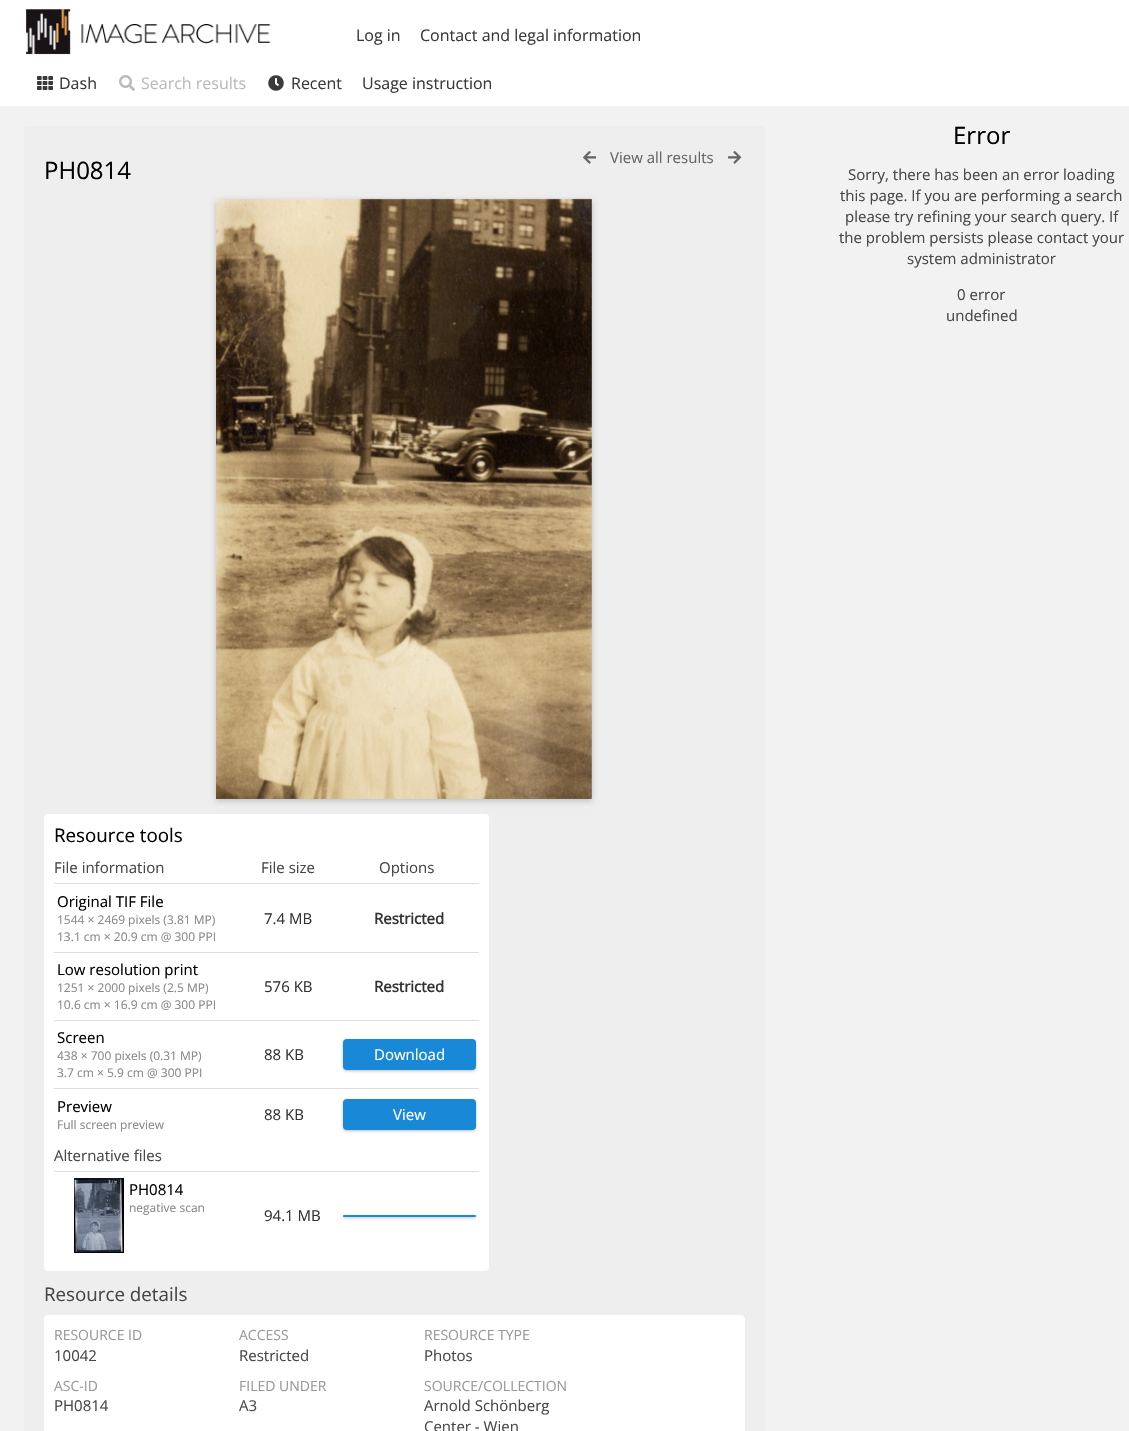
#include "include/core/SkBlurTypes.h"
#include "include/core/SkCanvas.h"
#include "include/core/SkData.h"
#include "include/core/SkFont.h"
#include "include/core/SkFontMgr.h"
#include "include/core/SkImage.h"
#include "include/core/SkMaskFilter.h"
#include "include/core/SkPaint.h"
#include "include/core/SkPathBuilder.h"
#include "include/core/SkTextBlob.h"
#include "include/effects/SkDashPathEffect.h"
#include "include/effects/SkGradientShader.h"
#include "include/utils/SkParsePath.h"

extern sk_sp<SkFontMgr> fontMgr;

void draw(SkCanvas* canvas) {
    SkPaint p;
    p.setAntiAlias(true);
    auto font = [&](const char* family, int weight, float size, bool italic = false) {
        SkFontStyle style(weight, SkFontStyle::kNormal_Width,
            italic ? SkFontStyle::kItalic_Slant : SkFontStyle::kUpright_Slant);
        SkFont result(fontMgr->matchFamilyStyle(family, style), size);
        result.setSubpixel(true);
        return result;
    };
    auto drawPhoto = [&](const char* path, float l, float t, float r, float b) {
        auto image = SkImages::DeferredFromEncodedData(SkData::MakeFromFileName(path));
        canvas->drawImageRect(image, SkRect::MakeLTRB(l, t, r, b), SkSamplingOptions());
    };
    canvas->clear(0xFFF2F2F2);
    p.setColor(0xFFFFFFFF);
    canvas->drawRect(SkRect::MakeLTRB(0, 0, 1129, 106), p);
    drawPhoto("media/1.png", 26, 9, 271, 55);
    auto font1 = font("Open Sans", 400, 16);
    p.setColor(0xFF3A3A3A);
    canvas->drawString("Log in", 356, 41, font1, p);
    canvas->drawString("Contact and legal information", 420, 41, font1, p);
    drawPhoto("media/2.png", 37, 76, 53, 90);
    canvas->drawString("Dash", 59, 89, font1, p);
    drawPhoto("media/3.png", 119, 75, 135, 91);
    p.setColor(0xFFBABABA);
    canvas->drawString("Search results", 141, 89, font1, p);
    drawPhoto("media/4.png", 268, 75, 284, 91);
    p.setColor(0xFF3A3A3A);
    canvas->drawString("Recent", 291, 89, font1, p);
    canvas->drawString("Usage instruction", 362, 89, font1, p);
    p.setColor(0xFFEEEEEE);
    canvas->drawPath(SkPathBuilder().moveTo(28, 126).lineTo(761, 126).cubicTo(763, 126, 765, 128, 765, 130).lineTo(765, 1431).lineTo(24, 1431).lineTo(24, 130).cubicTo(24, 128, 26, 126, 28, 126).close().detach(), p);
    drawPhoto("media/5.png", 583, 151, 597, 164);
    auto font2 = font("Open Sans", 400, 15);
    p.setColor(0xFF666666);
    canvas->drawString("View all results", 610, 163, font2, p);
    drawPhoto("media/6.png", 728, 151, 742, 164);
    auto font3 = font("Open Sans", 400, 24);
    p.setColor(0xFF000000);
    canvas->drawString("PH0814", 44, 179, font3, p);
    p.setColor(0x33000000);
    p.setMaskFilter(SkMaskFilter::MakeBlur(kNormal_SkBlurStyle, 3));
    canvas->drawRect(SkRect::MakeLTRB(216, 201, 592, 801), p);
    p.setMaskFilter(nullptr);
    drawPhoto("media/7.png", 216, 198, 592, 799);
    p.setColor(0xFFFFFFFF);
    canvas->drawRoundRect(SkRect::MakeLTRB(44, 814, 489, 1271), 4, 4, p);
    auto font4 = font("Open Sans", 400, 18.75f);
    p.setColor(0xFF000000);
    canvas->drawString("Resource tools", 54, 842, font4, p);
    p.setColor(0xFF474747);
    {
        const struct { const char* s; float x, y; } items[] = {
            {"File information", 54, 873},
            {"File size", 261, 873},
            {"Options", 379, 873},
        };
        for (auto [s, x, y] : items) {
            canvas->drawString(s, x, y, font2, p);
        }
    }
    p.setColor(0xFFDDDDDD);
    canvas->drawRect(SkRect::MakeLTRB(54, 883, 479, 884), p);
    p.setColor(0xFF000000);
    canvas->drawString("Original TIF File", 57, 907, font2, p);
    auto font5 = font("Open Sans", 400, 12);
    p.setColor(0xFF888888);
    canvas->drawString("1544 × 2469 pixels (3.81 MP)", 57, 924, font5, p);
    canvas->drawString("13.1 cm × 20.9 cm @ 300 PPI", 57, 941, font5, p);
    p.setColor(0xFF333333);
    canvas->drawString("7.4 MB", 264, 924, font2, p);
    auto font6 = font("Open Sans", 700, 15);
    canvas->drawString("Restricted", 374, 924, font6, p);
    p.setColor(0xFFDDDDDD);
    canvas->drawRect(SkRect::MakeLTRB(54, 952, 479, 953), p);
    p.setColor(0xFF000000);
    canvas->drawString("Low resolution print", 57, 975, font2, p);
    p.setColor(0xFF888888);
    canvas->drawString("1251 × 2000 pixels (2.5 MP)", 57, 992, font5, p);
    canvas->drawString("10.6 cm × 16.9 cm @ 300 PPI", 57, 1009, font5, p);
    p.setColor(0xFF333333);
    canvas->drawString("576 KB", 264, 992, font2, p);
    canvas->drawString("Restricted", 374, 992, font6, p);
    p.setColor(0xFFDDDDDD);
    canvas->drawRect(SkRect::MakeLTRB(54, 1020, 479, 1021), p);
    p.setColor(0xFF000000);
    canvas->drawString("Screen", 57, 1043, font2, p);
    p.setColor(0xFF888888);
    canvas->drawString("438 × 700 pixels (0.31 MP)", 57, 1060, font5, p);
    canvas->drawString("3.7 cm × 5.9 cm @ 300 PPI", 57, 1077, font5, p);
    p.setColor(0xFF333333);
    canvas->drawString("88 KB", 264, 1060, font2, p);
    p.setColor(0x40000000);
    p.setMaskFilter(SkMaskFilter::MakeBlur(kNormal_SkBlurStyle, 1.5f));
    canvas->drawRoundRect(SkRect::MakeLTRB(343, 1040, 476, 1071), 4, 4, p);
    p.setMaskFilter(nullptr);
    p.setColor(0xFF1988D7);
    canvas->drawRoundRect(SkRect::MakeLTRB(343, 1039, 476, 1070), 4, 4, p);
    p.setColor(0xFFFFFFFF);
    canvas->drawString("Download", 374, 1060, font2, p);
    p.setColor(0xFFDDDDDD);
    canvas->drawRect(SkRect::MakeLTRB(54, 1088, 479, 1089), p);
    p.setColor(0xFF000000);
    canvas->drawString("Preview", 57, 1112, font2, p);
    p.setColor(0xFF888888);
    canvas->drawString("Full screen preview", 57, 1129, font5, p);
    p.setColor(0xFF333333);
    canvas->drawString("88 KB", 264, 1120, font2, p);
    p.setColor(0x40000000);
    p.setMaskFilter(SkMaskFilter::MakeBlur(kNormal_SkBlurStyle, 1.5f));
    canvas->drawRoundRect(SkRect::MakeLTRB(343, 1100, 476, 1131), 4, 4, p);
    p.setMaskFilter(nullptr);
    p.setColor(0xFF1988D7);
    canvas->drawRoundRect(SkRect::MakeLTRB(343, 1099, 476, 1130), 4, 4, p);
    p.setColor(0xFFFFFFFF);
    canvas->drawString("View", 393, 1120, font2, p);
    p.setColor(0xFF474747);
    canvas->drawString("Alternative files", 54, 1161, font2, p);
    p.setColor(0xFFDDDDDD);
    canvas->drawRect(SkRect::MakeLTRB(54, 1171, 479, 1172), p);
    drawPhoto("media/8.png", 74, 1178, 124, 1253);
    p.setColor(0xFF000000);
    canvas->drawString("PH0814", 129, 1195, font2, p);
    p.setColor(0xFF888888);
    canvas->drawString("negative scan", 129, 1212, font5, p);
    p.setColor(0xFF333333);
    canvas->drawString("94.1 MB", 264, 1221, font2, p);
    p.setColor(0x40000000);
    p.setMaskFilter(SkMaskFilter::MakeBlur(kNormal_SkBlurStyle, 1.5f));
    canvas->drawRoundRect(SkRect::MakeLTRB(343, 1216, 476, 1218), 1, 1, p);
    p.setMaskFilter(nullptr);
    p.setColor(0xFF1988D7);
    canvas->drawRoundRect(SkRect::MakeLTRB(343, 1215, 476, 1217), 1, 1, p);
    p.setColor(0xFF474747);
    canvas->drawString("Resource details", 44, 1301, font4, p);
    p.setColor(0xFFFFFFFF);
    canvas->drawPath(SkPathBuilder().moveTo(48, 1315).lineTo(741, 1315).cubicTo(743, 1315, 745, 1317, 745, 1319).lineTo(745, 1431).lineTo(44, 1431).lineTo(44, 1319).cubicTo(44, 1317, 46, 1315, 48, 1315).close().detach(), p);
    auto font7 = font("Open Sans", 400, 14);
    p.setColor(0xFF999999);
    canvas->drawString("RESOURCE ID", 54, 1340, font7, p);
    p.setColor(0xFF474747);
    canvas->drawString("10042", 54, 1361, font2, p);
    p.setColor(0xFF999999);
    canvas->drawString("ACCESS", 239, 1340, font7, p);
    p.setColor(0xFF474747);
    canvas->drawString("Restricted", 239, 1361, font2, p);
    p.setColor(0xFF999999);
    canvas->drawString("RESOURCE TYPE", 424, 1340, font7, p);
    p.setColor(0xFF474747);
    canvas->drawString("Photos", 424, 1361, font2, p);
    p.setColor(0xFF999999);
    canvas->drawString("ASC-ID", 54, 1391, font7, p);
    p.setColor(0xFF474747);
    canvas->drawString("PH0814", 54, 1411, font2, p);
    p.setColor(0xFF999999);
    canvas->drawString("FILED UNDER", 239, 1391, font7, p);
    p.setColor(0xFF474747);
    canvas->drawString("A3", 239, 1411, font2, p);
    p.setColor(0xFF999999);
    canvas->drawString("SOURCE/COLLECTION", 424, 1391, font7, p);
    p.setColor(0xFF474747);
    canvas->drawString("Arnold Schönberg", 424, 1411, font2, p);
    canvas->drawString("Center - Wien", 424, 1432, font2, p);
    p.setColor(0xFF000000);
    canvas->drawString("Error", 953, 144, font3, p);
    p.setColor(0xFF474747);
    {
        const struct { const char* s; float x, y; } items[] = {
            {"Sorry, there has been an error loading", 848, 180},
            {"this page. If you are performing a search", 840, 201},
            {"please try refining your search query. If", 845, 222},
            {"the problem persists please contact your", 839, 243},
            {"system administrator", 907, 264},
            {"0 error", 957, 300},
            {"undefined", 946, 321},
        };
        for (auto [s, x, y] : items) {
            canvas->drawString(s, x, y, font2, p);
        }
    }
}
